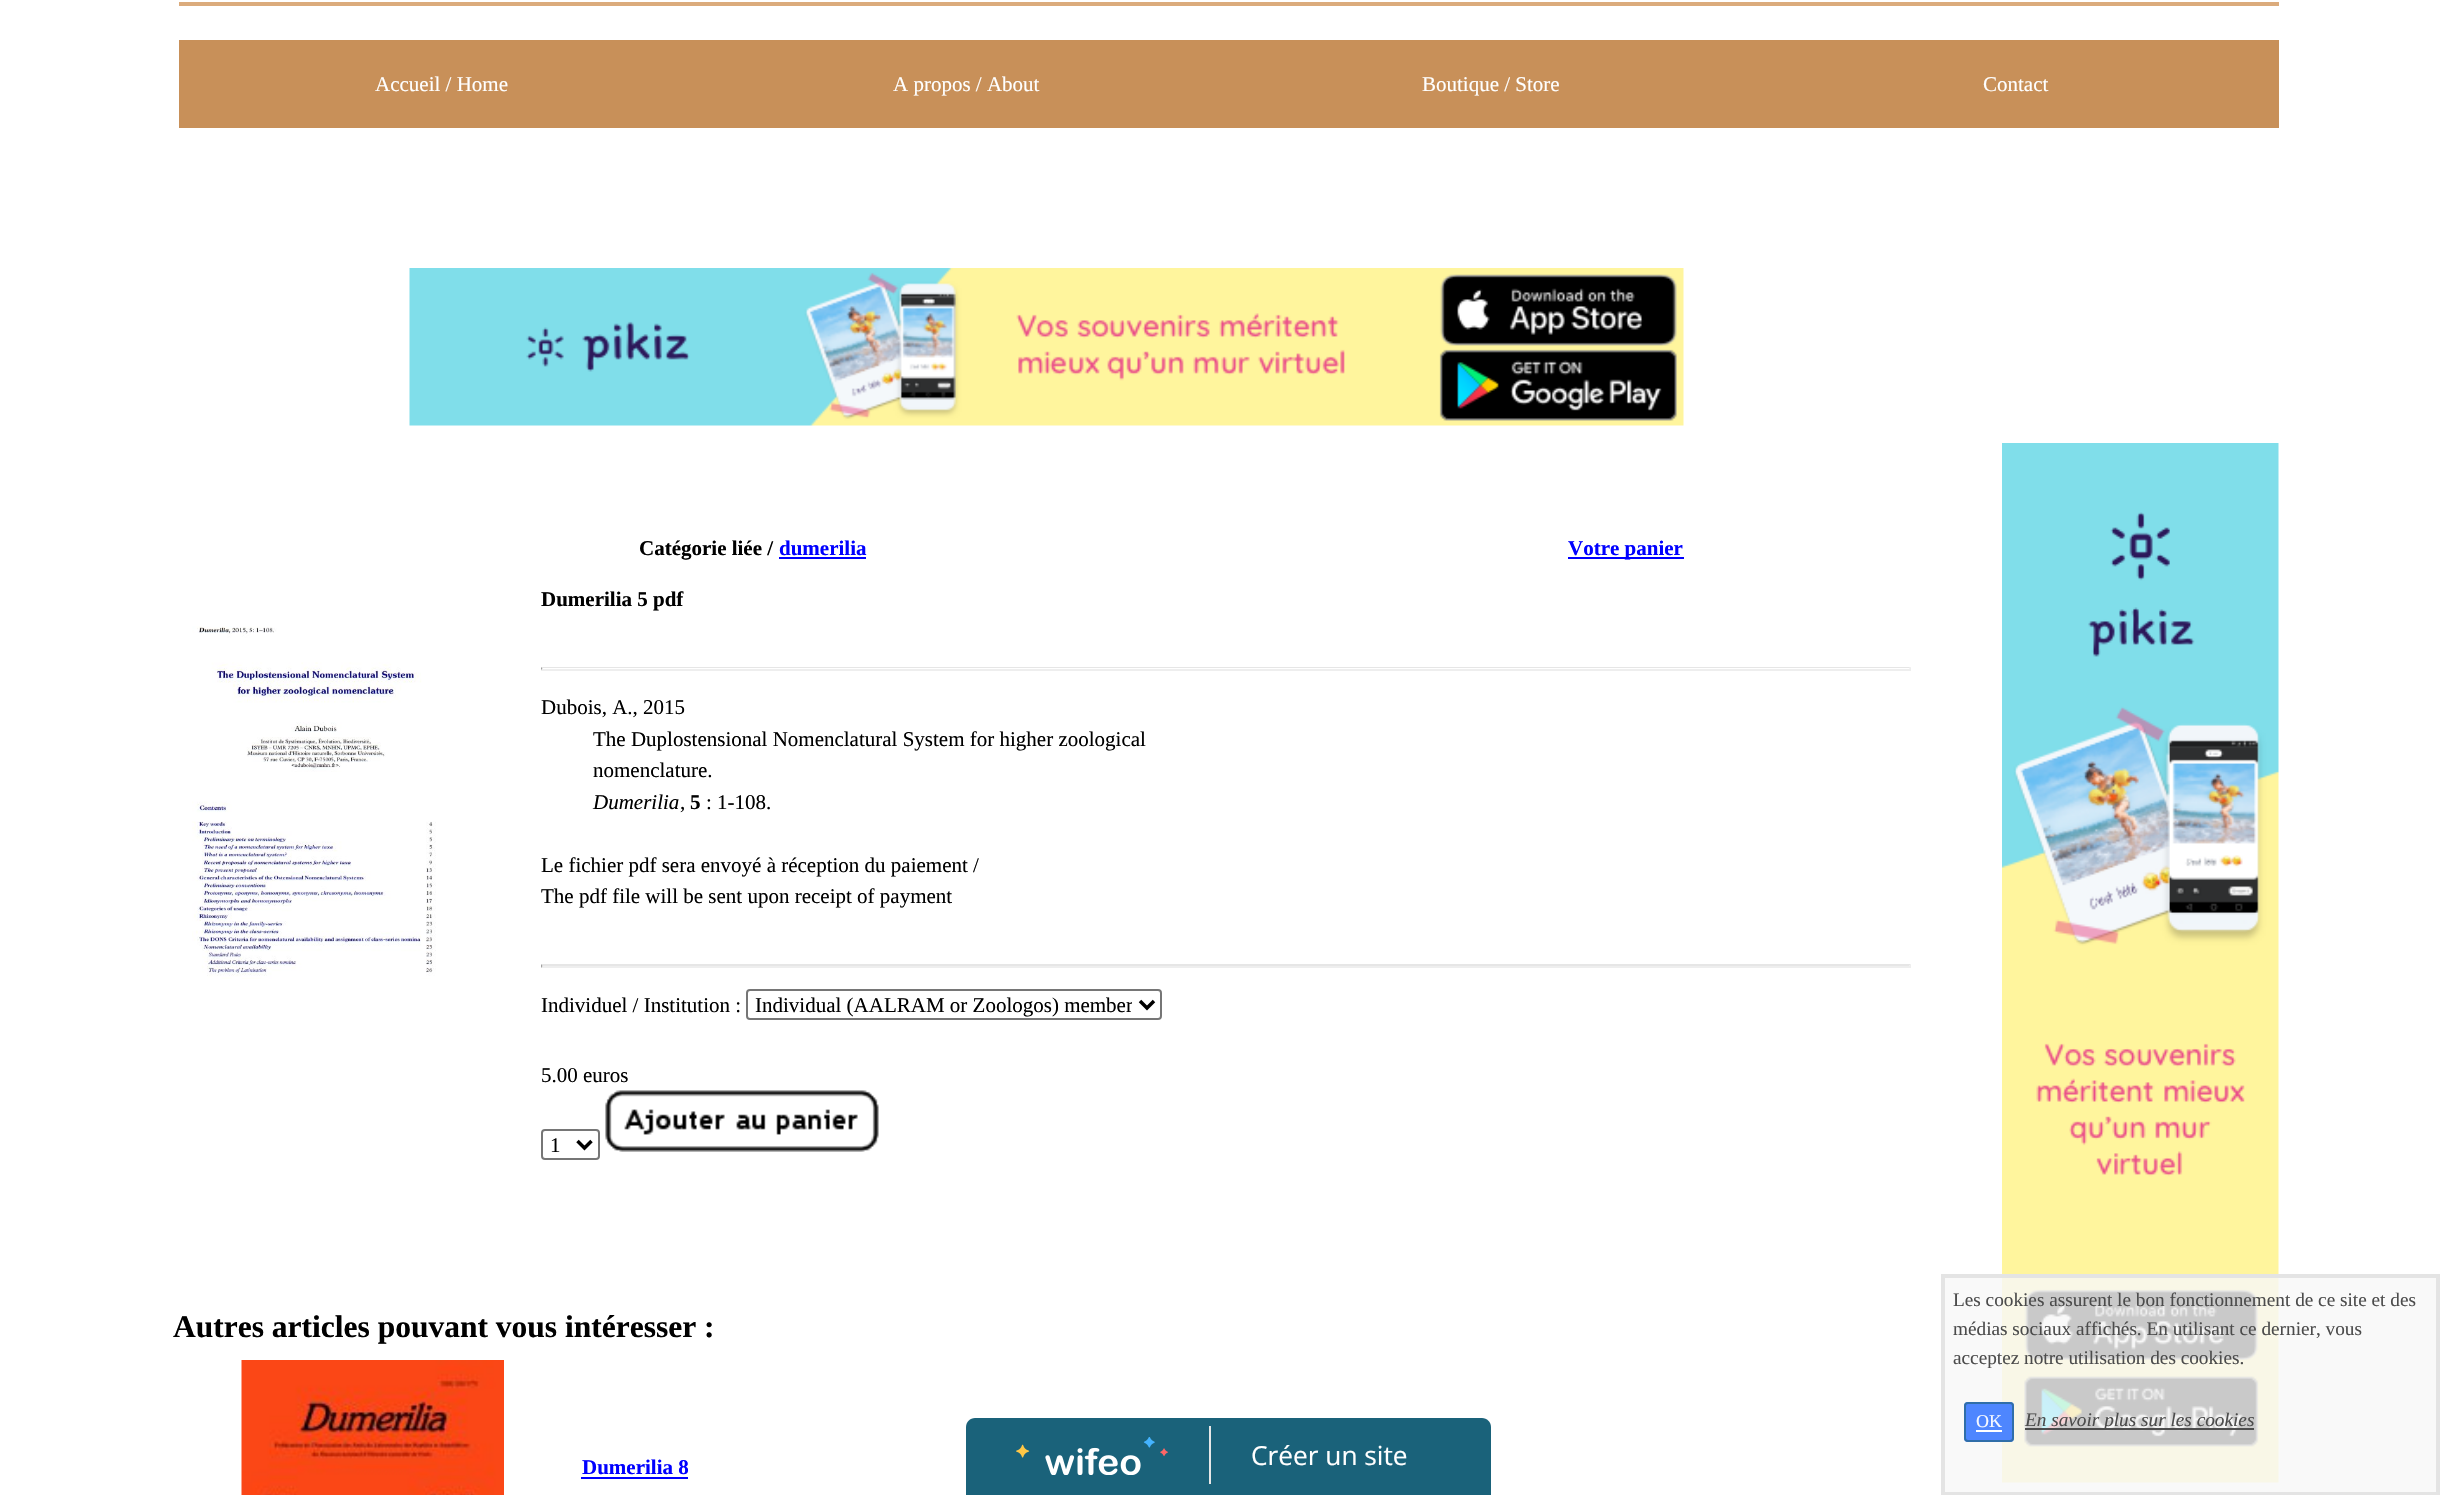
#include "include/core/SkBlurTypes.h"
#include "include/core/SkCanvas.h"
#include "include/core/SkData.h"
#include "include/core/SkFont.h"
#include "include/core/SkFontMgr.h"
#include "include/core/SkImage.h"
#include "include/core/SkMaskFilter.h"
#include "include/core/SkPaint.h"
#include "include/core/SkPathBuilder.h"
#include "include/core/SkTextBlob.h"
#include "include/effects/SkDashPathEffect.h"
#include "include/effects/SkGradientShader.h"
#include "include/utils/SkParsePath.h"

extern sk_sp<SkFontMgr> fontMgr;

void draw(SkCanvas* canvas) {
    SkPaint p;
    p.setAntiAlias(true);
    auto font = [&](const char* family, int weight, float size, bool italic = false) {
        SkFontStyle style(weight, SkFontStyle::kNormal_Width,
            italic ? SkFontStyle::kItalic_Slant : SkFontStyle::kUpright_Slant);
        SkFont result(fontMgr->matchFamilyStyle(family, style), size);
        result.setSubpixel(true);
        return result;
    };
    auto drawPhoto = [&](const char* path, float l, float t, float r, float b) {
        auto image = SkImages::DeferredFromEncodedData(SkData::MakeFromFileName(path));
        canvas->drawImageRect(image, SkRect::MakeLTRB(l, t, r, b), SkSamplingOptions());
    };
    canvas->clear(0xFFFFFFFF);
    p.setColor(0xFFDBAB7C);
    canvas->drawRect(SkRect::MakeLTRB(179, 2, 2279, 6), p);
    p.setColor(0xFFC89059);
    canvas->drawRect(SkRect::MakeLTRB(179, 40, 2279, 128), p);
    auto font1 = font("Liberation Serif", 400, 21);
    p.setColor(0xFFFFFFFF);
    {
        const struct { const char* s; float x, y; } items[] = {
            {"Accueil / Home", 375, 91},
            {"A propos / About", 893, 91},
            {"Boutique / Store", 1422, 91},
            {"Contact", 1983, 91},
        };
        for (auto [s, x, y] : items) {
            canvas->drawString(s, x, y, font1, p);
        }
    }
    drawPhoto("media/1.png", 409, 268, 1684, 426);
    auto font2 = font("Liberation Serif", 700, 21);
    p.setColor(0xFF000000);
    canvas->drawString("Catégorie liée /", 639, 555, font2, p);
    p.setColor(0xFF0000FF);
    canvas->drawString("dumerilia", 779, 555, font2, p);
    canvas->drawRect(SkRect::MakeLTRB(779, 557, 866, 559), p);
    canvas->drawRect(SkRect::MakeLTRB(1568, 557, 1684, 559), p);
    canvas->drawString("Votre panier", 1568, 555, font2, p);
    drawPhoto("media/2.png", 192, 626, 436, 979);
    p.setColor(0xFF000000);
    canvas->drawString("Dumerilia 5 pdf", 541, 606, font2, p);
    p.setColor(0xFFE6E6E6);
    canvas->drawPath(SkPathBuilder().moveTo(541, 667).lineTo(1911, 667).lineTo(1909, 668).lineTo(542, 668).close().detach(), p);
    p.setColor(0xFFEEEEEE);
    canvas->drawPath(SkPathBuilder().moveTo(1911, 667).lineTo(1911, 670).lineTo(1909, 668.5f).close().detach(), p);
    canvas->drawRect(SkRect::MakeLTRB(541, 669, 1911, 671), p);
    p.setColor(0xFF9F9F9F);
    canvas->drawPath(SkPathBuilder().moveTo(541, 670).lineTo(541, 667).lineTo(542.5f, 668.5f).close().detach(), p);
    p.setColor(0xFF000000);
    {
        const struct { const char* s; float x, y; } items[] = {
            {"Dubois, A., 2015", 541, 714},
            {"The Duplostensional Nomenclatural System for higher zoological", 593, 746},
            {"nomenclature.", 593, 777},
        };
        for (auto [s, x, y] : items) {
            canvas->drawString(s, x, y, font1, p);
        }
    }
    auto font3 = font("Liberation Serif", 400, 21, true);
    canvas->drawString("Dumerilia", 593, 809, font3, p);
    canvas->drawString(",", 680, 809, font1, p);
    canvas->drawString("5", 690, 809, font2, p);
    {
        const struct { const char* s; float x, y; } items[] = {
            {": 1-108.", 706, 809},
            {"Le fichier pdf sera envoyé à réception du paiement /", 541, 872},
            {"The pdf file will be sent upon receipt of payment", 541, 903},
        };
        for (auto [s, x, y] : items) {
            canvas->drawString(s, x, y, font1, p);
        }
    }
    p.setColor(0xFFE6E6E6);
    canvas->drawPath(SkPathBuilder().moveTo(541, 964).lineTo(1911, 964).lineTo(1909, 966).lineTo(542, 966).close().detach(), p);
    p.setColor(0xFFEEEEEE);
    canvas->drawPath(SkPathBuilder().moveTo(1911, 964).lineTo(1911, 968).lineTo(1909, 966).close().detach(), p);
    canvas->drawRect(SkRect::MakeLTRB(541, 966, 1911, 968), p);
    p.setColor(0xFF9F9F9F);
    canvas->drawPath(SkPathBuilder().moveTo(541, 968).lineTo(541, 964).lineTo(542.5f, 966).close().detach(), p);
    p.setColor(0xFF000000);
    canvas->drawString("Individuel / Institution :", 541, 1012, font1, p);
    p.setStyle(SkPaint::kStroke_Style);
    p.setStrokeWidth(2);
    p.setColor(0xFF767676);
    canvas->drawRoundRect(SkRect::MakeLTRB(747, 990, 1161, 1019), 3, 3, p);
    p.setStrokeWidth(3.5f);
    p.setColor(0xFF000000);
    canvas->drawPath(SkPathBuilder().moveTo(1140, 1001).lineTo(1147, 1008).lineTo(1154, 1001).detach(), p);
    canvas->save();
    canvas->clipRect(SkRect::MakeLTRB(754, 991, 1132, 1019));
    p.setStyle(SkPaint::kFill_Style);
    canvas->drawString("Individual (AALRAM or Zoologos) member", 755, 1012, font1, p);
    canvas->restore();
    canvas->drawString("5.00 euros", 541, 1082, font1, p);
    p.setStyle(SkPaint::kStroke_Style);
    p.setStrokeWidth(2);
    p.setColor(0xFF767676);
    canvas->drawRoundRect(SkRect::MakeLTRB(542, 1130, 599, 1159), 3, 3, p);
    p.setStrokeWidth(3.5f);
    p.setColor(0xFF000000);
    canvas->drawPath(SkPathBuilder().moveTo(577.5f, 1141).lineTo(584.5f, 1148).lineTo(591.5f, 1141).detach(), p);
    p.setStyle(SkPaint::kFill_Style);
    canvas->drawString("1", 550, 1152, font1, p);
    drawPhoto("media/3.png", 605, 1090, 879, 1152);
    auto font4 = font("Liberation Serif", 700, 31.5f);
    canvas->drawString("Autres articles pouvant vous intéresser :", 173, 1337, font4, p);
    drawPhoto("media/4.png", 241, 1360, 504, 1495);
    p.setColor(0xFF0000FF);
    canvas->drawString("Dumerilia 8", 582, 1474, font2, p);
    canvas->drawRect(SkRect::MakeLTRB(581, 1477, 688, 1479), p);
    drawPhoto("media/5.png", 2002, 443, 2279, 1483);
    p.setColor(0xCFF7F7F7);
    canvas->drawRect(SkRect::MakeLTRB(1941, 1274, 2440, 1495), p);
    p.setStyle(SkPaint::kStroke_Style);
    p.setStrokeWidth(4);
    p.setColor(0xF2E3E3E3);
    canvas->drawRect(SkRect::MakeLTRB(1943, 1276, 2438, 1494), p);
    auto font5 = font("Liberation Serif", 400, 19.25f);
    p.setStyle(SkPaint::kFill_Style);
    p.setColor(0xFF4C4C4C);
    {
        const struct { const char* s; float x, y; } items[] = {
            {"Les cookies assurent le bon fonctionnement de ce site et des", 1953, 1306},
            {"médias sociaux affichés. En utilisant ce dernier, vous", 1953, 1335},
            {"acceptez notre utilisation des cookies.", 1953, 1364},
        };
        for (auto [s, x, y] : items) {
            canvas->drawString(s, x, y, font5, p);
        }
    }
    p.setColor(0xF2447FFF);
    canvas->drawRoundRect(SkRect::MakeLTRB(1964, 1402, 2014, 1442), 4, 4, p);
    p.setStyle(SkPaint::kStroke_Style);
    p.setStrokeWidth(2);
    p.setColor(0xF22E6DA4);
    canvas->drawRoundRect(SkRect::MakeLTRB(1965, 1403, 2013, 1441), 3, 3, p);
    auto font6 = font("Liberation Serif", 400, 18);
    p.setStyle(SkPaint::kFill_Style);
    p.setColor(0xFFF6F9FF);
    canvas->drawString("OK", 1976, 1427, font6, p);
    p.setColor(0xFFFFFFFF);
    canvas->drawRect(SkRect::MakeLTRB(1976, 1430, 2002, 1432), p);
    p.setColor(0xF2444444);
    canvas->drawRect(SkRect::MakeLTRB(2025, 1428, 2254, 1430), p);
    auto font7 = font("Liberation Serif", 400, 19.25f, true);
    p.setColor(0xFF4C4C4C);
    canvas->drawString("En savoir plus sur les cookies", 2025, 1426, font7, p);
    p.setColor(0xFF1A627A);
    canvas->drawPath(SkPathBuilder().moveTo(975, 1418).lineTo(1482, 1418).cubicTo(1487, 1418, 1491, 1422, 1491, 1427).lineTo(1491, 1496).lineTo(966, 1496).lineTo(966, 1427).cubicTo(966, 1422, 970, 1418, 975, 1418).close().detach(), p);
    p.setColor(0xFFE7E7E7);
    canvas->drawRect(SkRect::MakeLTRB(1209, 1426, 1211, 1484), p);
    drawPhoto("media/6.png", 1016, 1437, 1168, 1475);
    auto font8 = font("Open Sans", 400, 26.25f);
    p.setColor(0xFFFFFFFF);
    canvas->drawString("Créer un site", 1251, 1465, font8, p);
}
